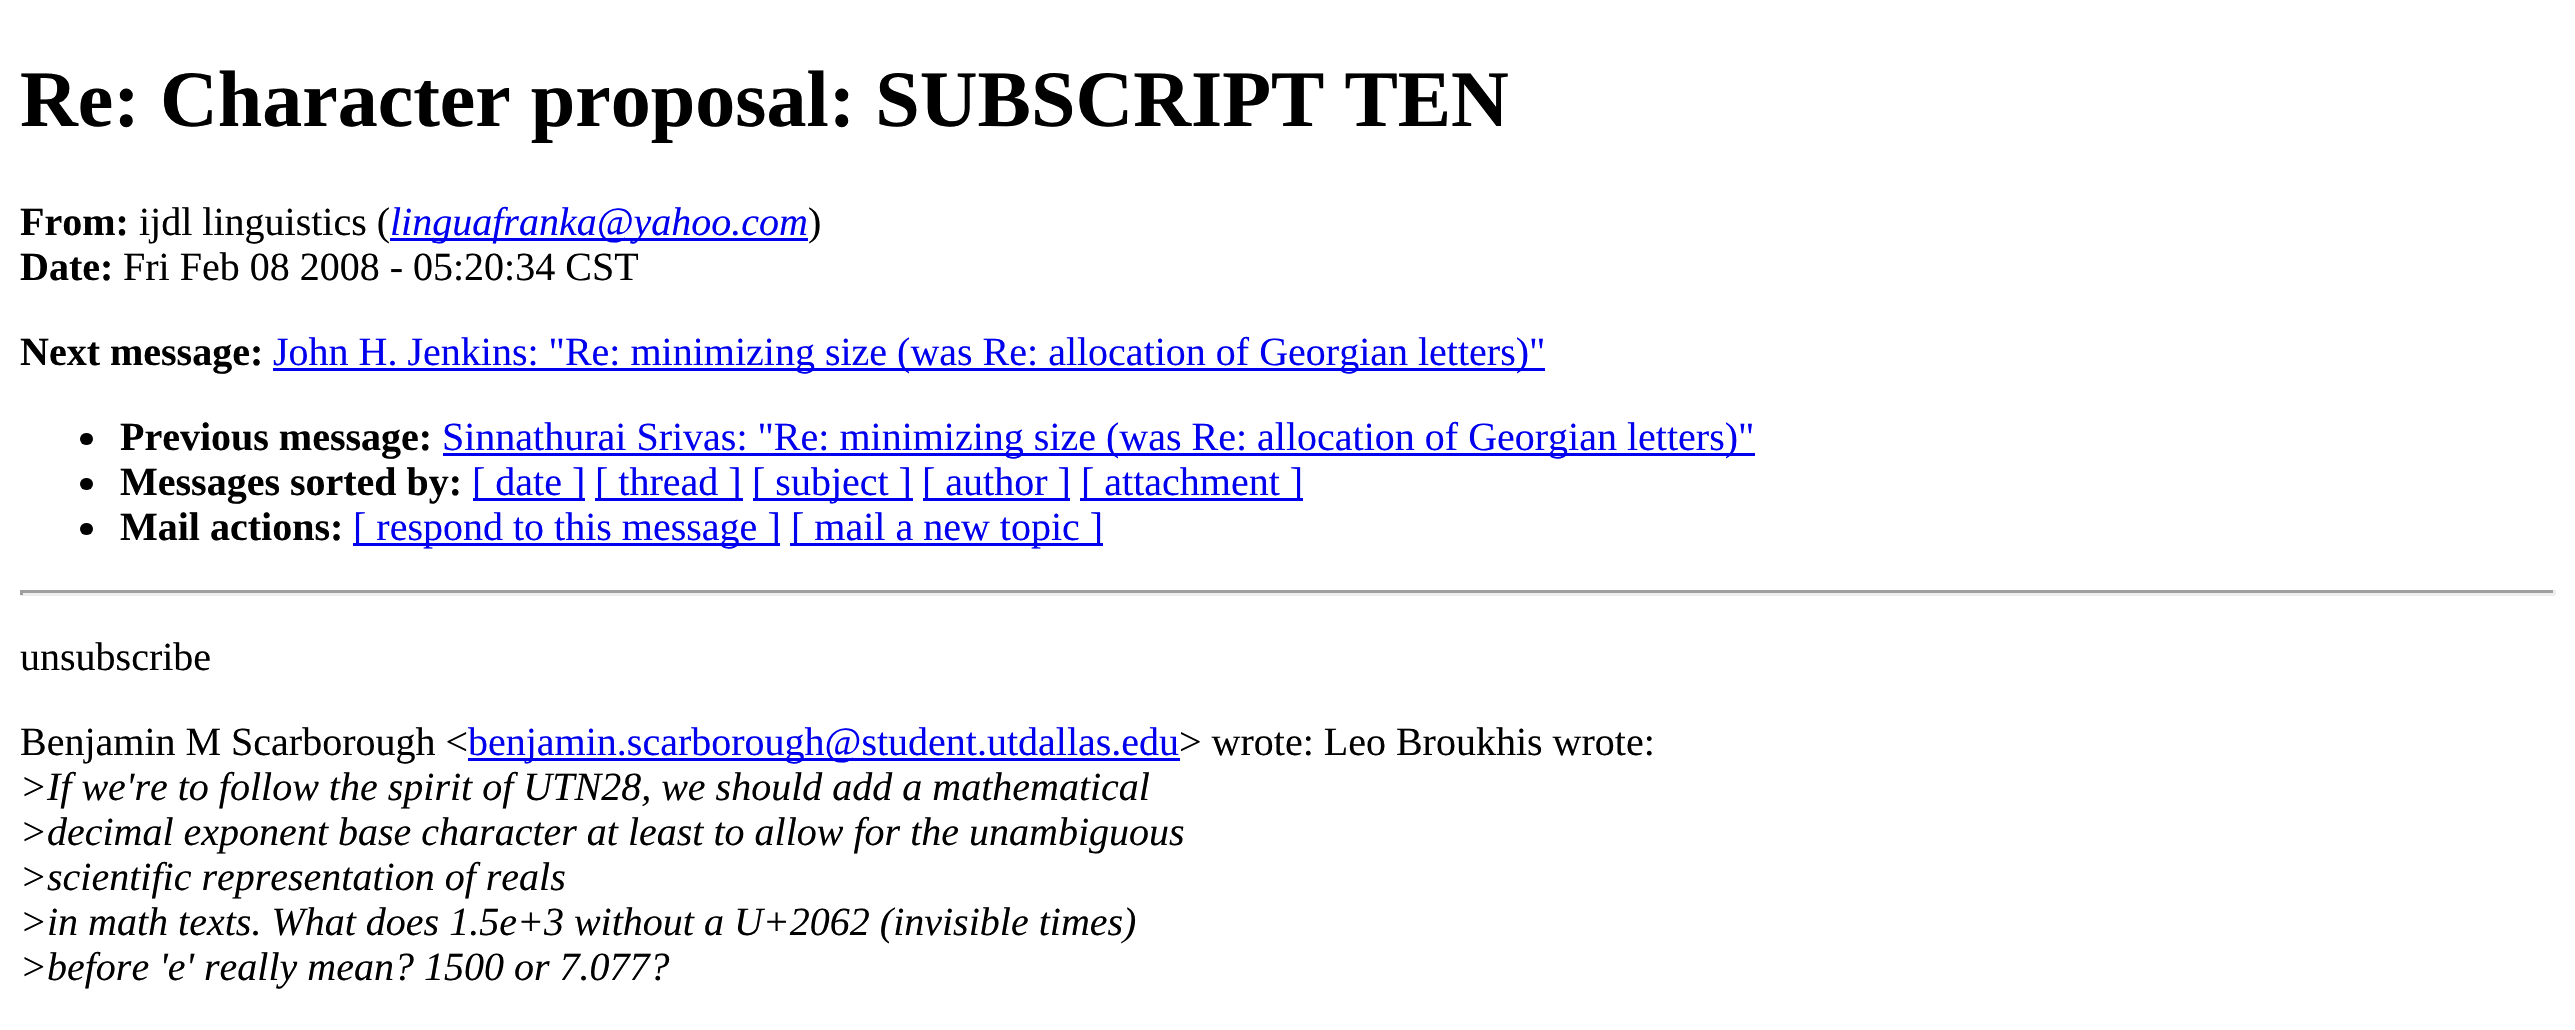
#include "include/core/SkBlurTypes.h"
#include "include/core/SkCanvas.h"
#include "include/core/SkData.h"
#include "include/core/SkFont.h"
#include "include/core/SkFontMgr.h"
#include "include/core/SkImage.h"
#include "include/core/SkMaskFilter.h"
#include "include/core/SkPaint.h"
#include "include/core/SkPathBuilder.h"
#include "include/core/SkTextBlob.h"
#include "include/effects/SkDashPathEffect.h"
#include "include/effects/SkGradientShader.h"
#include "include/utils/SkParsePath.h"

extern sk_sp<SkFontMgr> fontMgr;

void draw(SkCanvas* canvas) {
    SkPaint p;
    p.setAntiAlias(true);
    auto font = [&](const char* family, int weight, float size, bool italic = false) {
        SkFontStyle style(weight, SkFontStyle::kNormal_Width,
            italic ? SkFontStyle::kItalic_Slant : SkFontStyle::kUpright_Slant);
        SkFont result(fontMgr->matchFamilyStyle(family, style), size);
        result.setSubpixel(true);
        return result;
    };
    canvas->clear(0xFFFFFFFF);
    auto font1 = font("Liberation Serif", 700, 80);
    p.setColor(0xFF000000);
    canvas->drawString("Re: Character proposal: SUBSCRIPT TEN", 20, 126, font1, p);
    auto font2 = font("Liberation Serif", 700, 40);
    canvas->drawString("From:", 20, 235, font2, p);
    auto font3 = font("Liberation Serif", 400, 40);
    canvas->drawString("ijdl linguistics (", 139, 235, font3, p);
    p.setColor(0xFF0000EE);
    canvas->drawRect(SkRect::MakeLTRB(390, 238, 808, 241), p);
    auto font4 = font("Liberation Serif", 400, 40, true);
    canvas->drawString("linguafranka@yahoo.com", 390, 235, font4, p);
    p.setColor(0xFF000000);
    canvas->drawString(")", 808, 235, font3, p);
    canvas->drawString("Date:", 20, 280, font2, p);
    canvas->drawString("Fri Feb 08 2008 - 05:20:34 CST", 123, 280, font3, p);
    canvas->drawString("Next message:", 20, 365, font2, p);
    p.setColor(0xFF0000EE);
    canvas->drawRect(SkRect::MakeLTRB(273, 368, 1545, 371), p);
    canvas->drawString("John H. Jenkins: \"Re: minimizing size (was Re: allocation of Georgian letters)\"", 273, 365, font3, p);
    p.setColor(0xFF000000);
    canvas->drawRoundRect(SkRect::MakeLTRB(80, 433, 93, 445), 6, 6, p);
    canvas->drawString("Previous message:", 120, 450, font2, p);
    p.setColor(0xFF0000EE);
    canvas->drawRect(SkRect::MakeLTRB(443, 453, 1755, 456), p);
    canvas->drawString("Sinnathurai Srivas: \"Re: minimizing size (was Re: allocation of Georgian letters)\"", 442, 450, font3, p);
    p.setColor(0xFF000000);
    canvas->drawRoundRect(SkRect::MakeLTRB(80, 478, 93, 490), 6, 6, p);
    canvas->drawString("Messages sorted by:", 120, 495, font2, p);
    p.setColor(0xFF0000EE);
    canvas->drawRect(SkRect::MakeLTRB(473, 498, 585, 501), p);
    canvas->drawString("[ date ]", 472, 495, font3, p);
    canvas->drawRect(SkRect::MakeLTRB(595, 498, 743, 501), p);
    canvas->drawString("[ thread ]", 595, 495, font3, p);
    canvas->drawRect(SkRect::MakeLTRB(753, 498, 913, 501), p);
    canvas->drawString("[ subject ]", 752, 495, font3, p);
    canvas->drawRect(SkRect::MakeLTRB(923, 498, 1070, 501), p);
    canvas->drawString("[ author ]", 922, 495, font3, p);
    canvas->drawRect(SkRect::MakeLTRB(1080, 498, 1303, 501), p);
    canvas->drawString("[ attachment ]", 1081, 495, font3, p);
    p.setColor(0xFF000000);
    canvas->drawRoundRect(SkRect::MakeLTRB(80, 523, 93, 535), 6, 6, p);
    canvas->drawString("Mail actions:", 120, 540, font2, p);
    p.setColor(0xFF0000EE);
    canvas->drawRect(SkRect::MakeLTRB(353, 543, 780, 546), p);
    canvas->drawString("[ respond to this message ]", 353, 540, font3, p);
    canvas->drawRect(SkRect::MakeLTRB(790, 543, 1103, 546), p);
    canvas->drawString("[ mail a new topic ]", 791, 540, font3, p);
    {
        const struct { float l, t, r, b; SkColor color; } items[] = {
            {20, 590, 2555, 593, 0xFF9F9F9F},
            {2553, 590, 2556, 595, 0xFFEEEEEE},
            {20, 593, 2555, 596, 0xFFEEEEEE},
            {20, 590, 23, 595, 0xFF9F9F9F},
        };
        for (auto [l, t, r, b, color] : items) {
            p.setColor(color);
            canvas->drawRect(SkRect::MakeLTRB(l, t, r, b), p);
        }
    }
    p.setColor(0xFF000000);
    canvas->drawString("unsubscribe", 20, 670, font3, p);
    canvas->drawString("Benjamin M Scarborough <", 20, 755, font3, p);
    p.setColor(0xFF0000EE);
    canvas->drawRect(SkRect::MakeLTRB(468, 758, 1180, 761), p);
    canvas->drawString("benjamin.scarborough@student.utdallas.edu", 468, 755, font3, p);
    p.setColor(0xFF000000);
    canvas->drawString("> wrote: Leo Broukhis wrote:", 1179, 755, font3, p);
    {
        const struct { const char* s; float x, y; } items[] = {
            {">If we're to follow the spirit of UTN28, we should add a mathematical", 20, 800},
            {">decimal exponent base character at least to allow for the unambiguous", 20, 845},
            {">scientific representation of reals", 20, 890},
            {">in math texts. What does 1.5e+3 without a U+2062 (invisible times)", 20, 935},
            {">before 'e' really mean? 1500 or 7.077?", 20, 980},
        };
        for (auto [s, x, y] : items) {
            canvas->drawString(s, x, y, font4, p);
        }
    }
}
